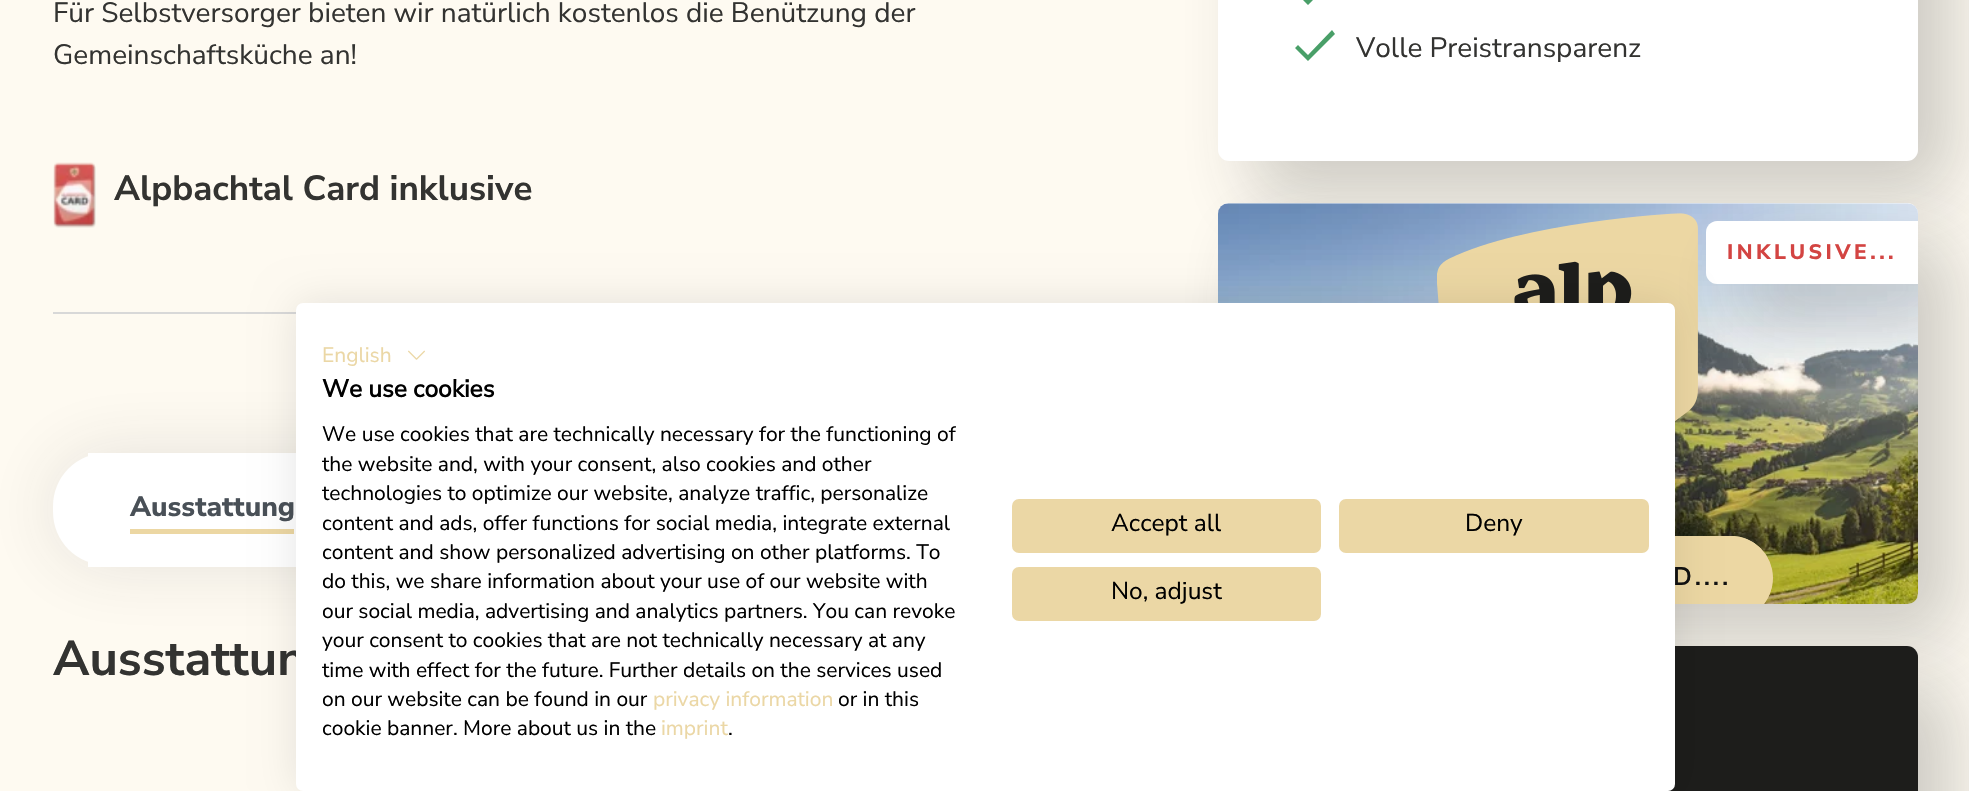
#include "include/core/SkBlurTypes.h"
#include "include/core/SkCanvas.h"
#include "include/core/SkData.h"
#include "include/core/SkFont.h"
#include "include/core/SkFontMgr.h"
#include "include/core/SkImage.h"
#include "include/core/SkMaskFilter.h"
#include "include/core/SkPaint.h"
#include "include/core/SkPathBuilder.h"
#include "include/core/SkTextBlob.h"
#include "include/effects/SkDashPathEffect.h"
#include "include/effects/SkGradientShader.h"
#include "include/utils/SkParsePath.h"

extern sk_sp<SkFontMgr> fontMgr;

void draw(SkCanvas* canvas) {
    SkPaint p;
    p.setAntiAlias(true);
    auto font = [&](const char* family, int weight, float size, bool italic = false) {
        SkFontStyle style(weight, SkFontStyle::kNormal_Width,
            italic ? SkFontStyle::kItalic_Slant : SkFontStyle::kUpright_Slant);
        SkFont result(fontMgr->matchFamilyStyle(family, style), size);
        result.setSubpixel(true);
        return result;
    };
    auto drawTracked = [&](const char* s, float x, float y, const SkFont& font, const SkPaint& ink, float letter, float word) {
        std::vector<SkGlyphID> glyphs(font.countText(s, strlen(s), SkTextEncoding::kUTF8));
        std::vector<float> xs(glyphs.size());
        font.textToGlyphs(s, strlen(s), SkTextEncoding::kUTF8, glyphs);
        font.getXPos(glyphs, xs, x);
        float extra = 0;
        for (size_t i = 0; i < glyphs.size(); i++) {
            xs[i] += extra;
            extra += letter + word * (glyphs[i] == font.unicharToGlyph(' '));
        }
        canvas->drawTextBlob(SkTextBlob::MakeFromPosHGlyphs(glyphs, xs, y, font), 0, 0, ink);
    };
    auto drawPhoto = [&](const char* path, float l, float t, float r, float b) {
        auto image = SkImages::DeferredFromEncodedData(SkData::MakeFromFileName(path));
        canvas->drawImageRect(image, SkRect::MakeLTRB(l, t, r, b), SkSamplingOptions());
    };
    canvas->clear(0xFFFEFAF1);
    auto font1 = font("Nunito Sans", 400, 28);
    p.setColor(0xFF333331);
    canvas->drawString("Für Selbstversorger bieten wir natürlich kostenlos die Benützung der", 53, 22, font1, p);
    canvas->drawString("Gemeinschaftsküche an!", 53, 64, font1, p);
    drawPhoto("media/1.png", 53, 162, 96, 228);
    auto font2 = font("Nunito Sans", 700, 35);
    canvas->drawString("Alpbachtal Card inklusive", 114, 200, font2, p);
    p.setColor(0xFFD8D8D8);
    canvas->drawRect(SkRect::MakeLTRB(53, 312, 296, 314), p);
    p.setColor(0x1F333331);
    p.setMaskFilter(SkMaskFilter::MakeBlur(kNormal_SkBlurStyle, 35));
    canvas->drawRoundRect(SkRect::MakeLTRB(53, 453, 1148, 565), 53, 53, p);
    p.setMaskFilter(nullptr);
    p.setColor(0xFFFFFFFF);
    canvas->drawRoundRect(SkRect::MakeLTRB(53, 453, 1148, 565), 53, 53, p);
    canvas->drawRect(SkRect::MakeLTRB(88, 453, 296, 567), p);
    auto font3 = font("Nunito Sans", 800, 28);
    p.setColor(0xFF495057);
    canvas->drawString("Ausstattung", 130, 516, font3, p);
    p.setColor(0xFFECD7A3);
    canvas->drawRect(SkRect::MakeLTRB(130, 529, 294, 534), p);
    auto font4 = font("Nunito Sans", 700, 49);
    p.setColor(0xFF333331);
    canvas->drawString("Ausstattun", 53, 675, font4, p);
    p.setColor(0x3D333331);
    p.setMaskFilter(SkMaskFilter::MakeBlur(kNormal_SkBlurStyle, 35));
    canvas->drawRoundRect(SkRect::MakeLTRB(1253, -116, 1953, 196), 11, 11, p);
    p.setMaskFilter(nullptr);
    p.setColor(0xFFFFFFFF);
    canvas->drawRoundRect(SkRect::MakeLTRB(1218, -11, 1918, 161), 11, 11, p);
    p.setColor(0xFF499F68);
    canvas->drawPath(SkPathBuilder().moveTo(1308, -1).lineTo(1298, -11).lineTo(1295, -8).lineTo(1308, 5).lineTo(1335, -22).lineTo(1332, -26).close().moveTo(1308, 55).lineTo(1298, 45).lineTo(1295, 48).lineTo(1308, 61).lineTo(1335, 34).lineTo(1332, 30).close().detach(), p);
    p.setColor(0xFF333331);
    canvas->drawString("Volle Preistransparenz", 1356, 57, font1, p);
    p.setColor(0x3D333331);
    p.setMaskFilter(SkMaskFilter::MakeBlur(kNormal_SkBlurStyle, 35));
    canvas->drawRoundRect(SkRect::MakeLTRB(1253, 238, 1953, 639), 11, 11, p);
    p.setMaskFilter(nullptr);
    p.setColor(0xFFFFFFFF);
    canvas->drawRoundRect(SkRect::MakeLTRB(1218, 203, 1918, 604), 11, 11, p);
    drawPhoto("media/2.png", 1218, 203, 1918, 604);
    drawPhoto("media/3.png", 1437, 213, 1698, 421);
    canvas->save();
    canvas->clipPath(SkPathBuilder().moveTo(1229, 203).lineTo(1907, 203).cubicTo(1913, 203, 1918, 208, 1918, 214).lineTo(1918, 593).cubicTo(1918, 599, 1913, 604, 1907, 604).lineTo(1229, 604).cubicTo(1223, 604, 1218, 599, 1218, 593).lineTo(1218, 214).cubicTo(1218, 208, 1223, 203, 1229, 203).close().detach(), true);
    p.setColor(0x3D333331);
    p.setMaskFilter(SkMaskFilter::MakeBlur(kNormal_SkBlurStyle, 35));
    canvas->drawRoundRect(SkRect::MakeLTRB(1741, 256, 1953, 319), 11, 11, p);
    p.setMaskFilter(nullptr);
    canvas->restore();
    p.setColor(0xFFFFFFFF);
    canvas->drawPath(SkPathBuilder().moveTo(1717, 221).lineTo(1918, 221).lineTo(1918, 284).lineTo(1717, 284).cubicTo(1711, 284, 1706, 279, 1706, 273).lineTo(1706, 232).cubicTo(1706, 226, 1711, 221, 1717, 221).close().detach(), p);
    auto font5 = font("Nunito Sans", 800, 21);
    p.setColor(0xFFD34442);
    drawTracked("INKLUSIVE...", 1727, 259, font5, p, 3.5f, 0);
    canvas->save();
    canvas->clipPath(SkPathBuilder().moveTo(1229, 203).lineTo(1907, 203).cubicTo(1913, 203, 1918, 208, 1918, 214).lineTo(1918, 593).cubicTo(1918, 599, 1913, 604, 1907, 604).lineTo(1229, 604).cubicTo(1223, 604, 1218, 599, 1218, 593).lineTo(1218, 214).cubicTo(1218, 208, 1223, 203, 1229, 203).close().detach(), true);
    p.setColor(0xFFECD7A3);
    canvas->drawRoundRect(SkRect::MakeLTRB(1363, 536, 1773, 620), 42, 42, p);
    canvas->restore();
    canvas->drawPath(SkPathBuilder().moveTo(1405, 536).cubicTo(1370, 536, 1351, 577, 1372, 604).lineTo(1375, 604).cubicTo(1369, 597, 1365, 588, 1365, 578).cubicTo(1365, 556, 1383, 538, 1405, 538).lineTo(1731, 538).cubicTo(1753, 538, 1771, 556, 1771, 578).cubicTo(1771, 588, 1767, 597, 1761, 604).lineTo(1764, 604).cubicTo(1785, 577, 1766, 536, 1731, 536).close().detach(), p);
    auto font6 = font("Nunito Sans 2", 700, 24.5f);
    p.setColor(0xFF111111);
    drawTracked("D....", 1673, 585, font6, p, 3.5f, 0);
    p.setColor(0x3D333331);
    p.setMaskFilter(SkMaskFilter::MakeBlur(kNormal_SkBlurStyle, 35));
    canvas->drawRoundRect(SkRect::MakeLTRB(1253, 681, 1953, 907), 11, 11, p);
    p.setMaskFilter(nullptr);
    p.setColor(0xFF1D1D1B);
    canvas->drawRoundRect(SkRect::MakeLTRB(1218, 646, 1918, 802), 11, 11, p);
    p.setColor(0x1A000000);
    p.setMaskFilter(SkMaskFilter::MakeBlur(kNormal_SkBlurStyle, 21));
    canvas->drawRoundRect(SkRect::MakeLTRB(296, 303, 1675, 791), 7, 7, p);
    p.setMaskFilter(nullptr);
    p.setColor(0xFFFFFFFF);
    canvas->drawRoundRect(SkRect::MakeLTRB(296, 303, 1675, 791), 7, 7, p);
    auto font7 = font("Nunito Sans", 400, 21);
    p.setColor(0xFFEBD7A5);
    canvas->drawString("English", 322, 362, font7, p);
    drawPhoto("media/4.png", 408, 350, 425, 360);
    p.setColor(0xFF000000);
    canvas->drawString("We use cookies", 322, 397, font6, p);
    {
        const struct { const char* s; float x, y; } items[] = {
            {"We use cookies that are technically necessary for the functioning of", 322, 441},
            {"the website and, with your consent, also cookies and other", 322, 471},
            {"technologies to optimize our website, analyze traffic, personalize", 322, 500},
            {"content and ads, offer functions for social media, integrate external", 322, 530},
            {"content and show personalized advertising on other platforms. To", 322, 559},
            {"do this, we share information about your use of our website with", 322, 588},
            {"our social media, advertising and analytics partners. You can revoke", 322, 618},
            {"your consent to cookies that are not technically necessary at any", 322, 647},
            {"time with effect for the future. Further details on the services used", 322, 677},
            {"on our website can be found in our", 322, 706},
        };
        for (auto [s, x, y] : items) {
            canvas->drawString(s, x, y, font7, p);
        }
    }
    p.setColor(0xFFEBD7A5);
    canvas->drawString("privacy information", 653, 706, font7, p);
    p.setColor(0xFF000000);
    canvas->drawString("or in this", 838, 706, font7, p);
    canvas->drawString("cookie banner. More about us in the", 322, 735, font7, p);
    p.setColor(0xFFEBD7A5);
    canvas->drawString("imprint", 661, 735, font7, p);
    p.setColor(0xFF000000);
    canvas->drawString(".", 728, 735, font7, p);
    p.setColor(0xFFEBD7A5);
    canvas->drawRoundRect(SkRect::MakeLTRB(1013, 500, 1320, 552), 6, 6, p);
    p.setStyle(SkPaint::kStroke_Style);
    p.setStrokeWidth(2);
    canvas->drawRoundRect(SkRect::MakeLTRB(1013, 500, 1320, 552), 6, 6, p);
    auto font8 = font("Nunito Sans", 400, 24.5f);
    p.setStyle(SkPaint::kFill_Style);
    p.setColor(0xFF000000);
    canvas->drawString("Accept all", 1111, 531, font8, p);
    p.setColor(0xFFEBD7A5);
    canvas->drawRoundRect(SkRect::MakeLTRB(1340, 500, 1648, 552), 6, 6, p);
    p.setStyle(SkPaint::kStroke_Style);
    canvas->drawRoundRect(SkRect::MakeLTRB(1340, 500, 1648, 552), 6, 6, p);
    p.setStyle(SkPaint::kFill_Style);
    p.setColor(0xFF000000);
    canvas->drawString("Deny", 1465, 531, font8, p);
    p.setColor(0xFFEBD7A5);
    canvas->drawRoundRect(SkRect::MakeLTRB(1013, 568, 1320, 620), 6, 6, p);
    p.setStyle(SkPaint::kStroke_Style);
    canvas->drawRoundRect(SkRect::MakeLTRB(1013, 568, 1320, 620), 6, 6, p);
    p.setStyle(SkPaint::kFill_Style);
    p.setColor(0xFF000000);
    canvas->drawString("No, adjust", 1111, 599, font8, p);
}
